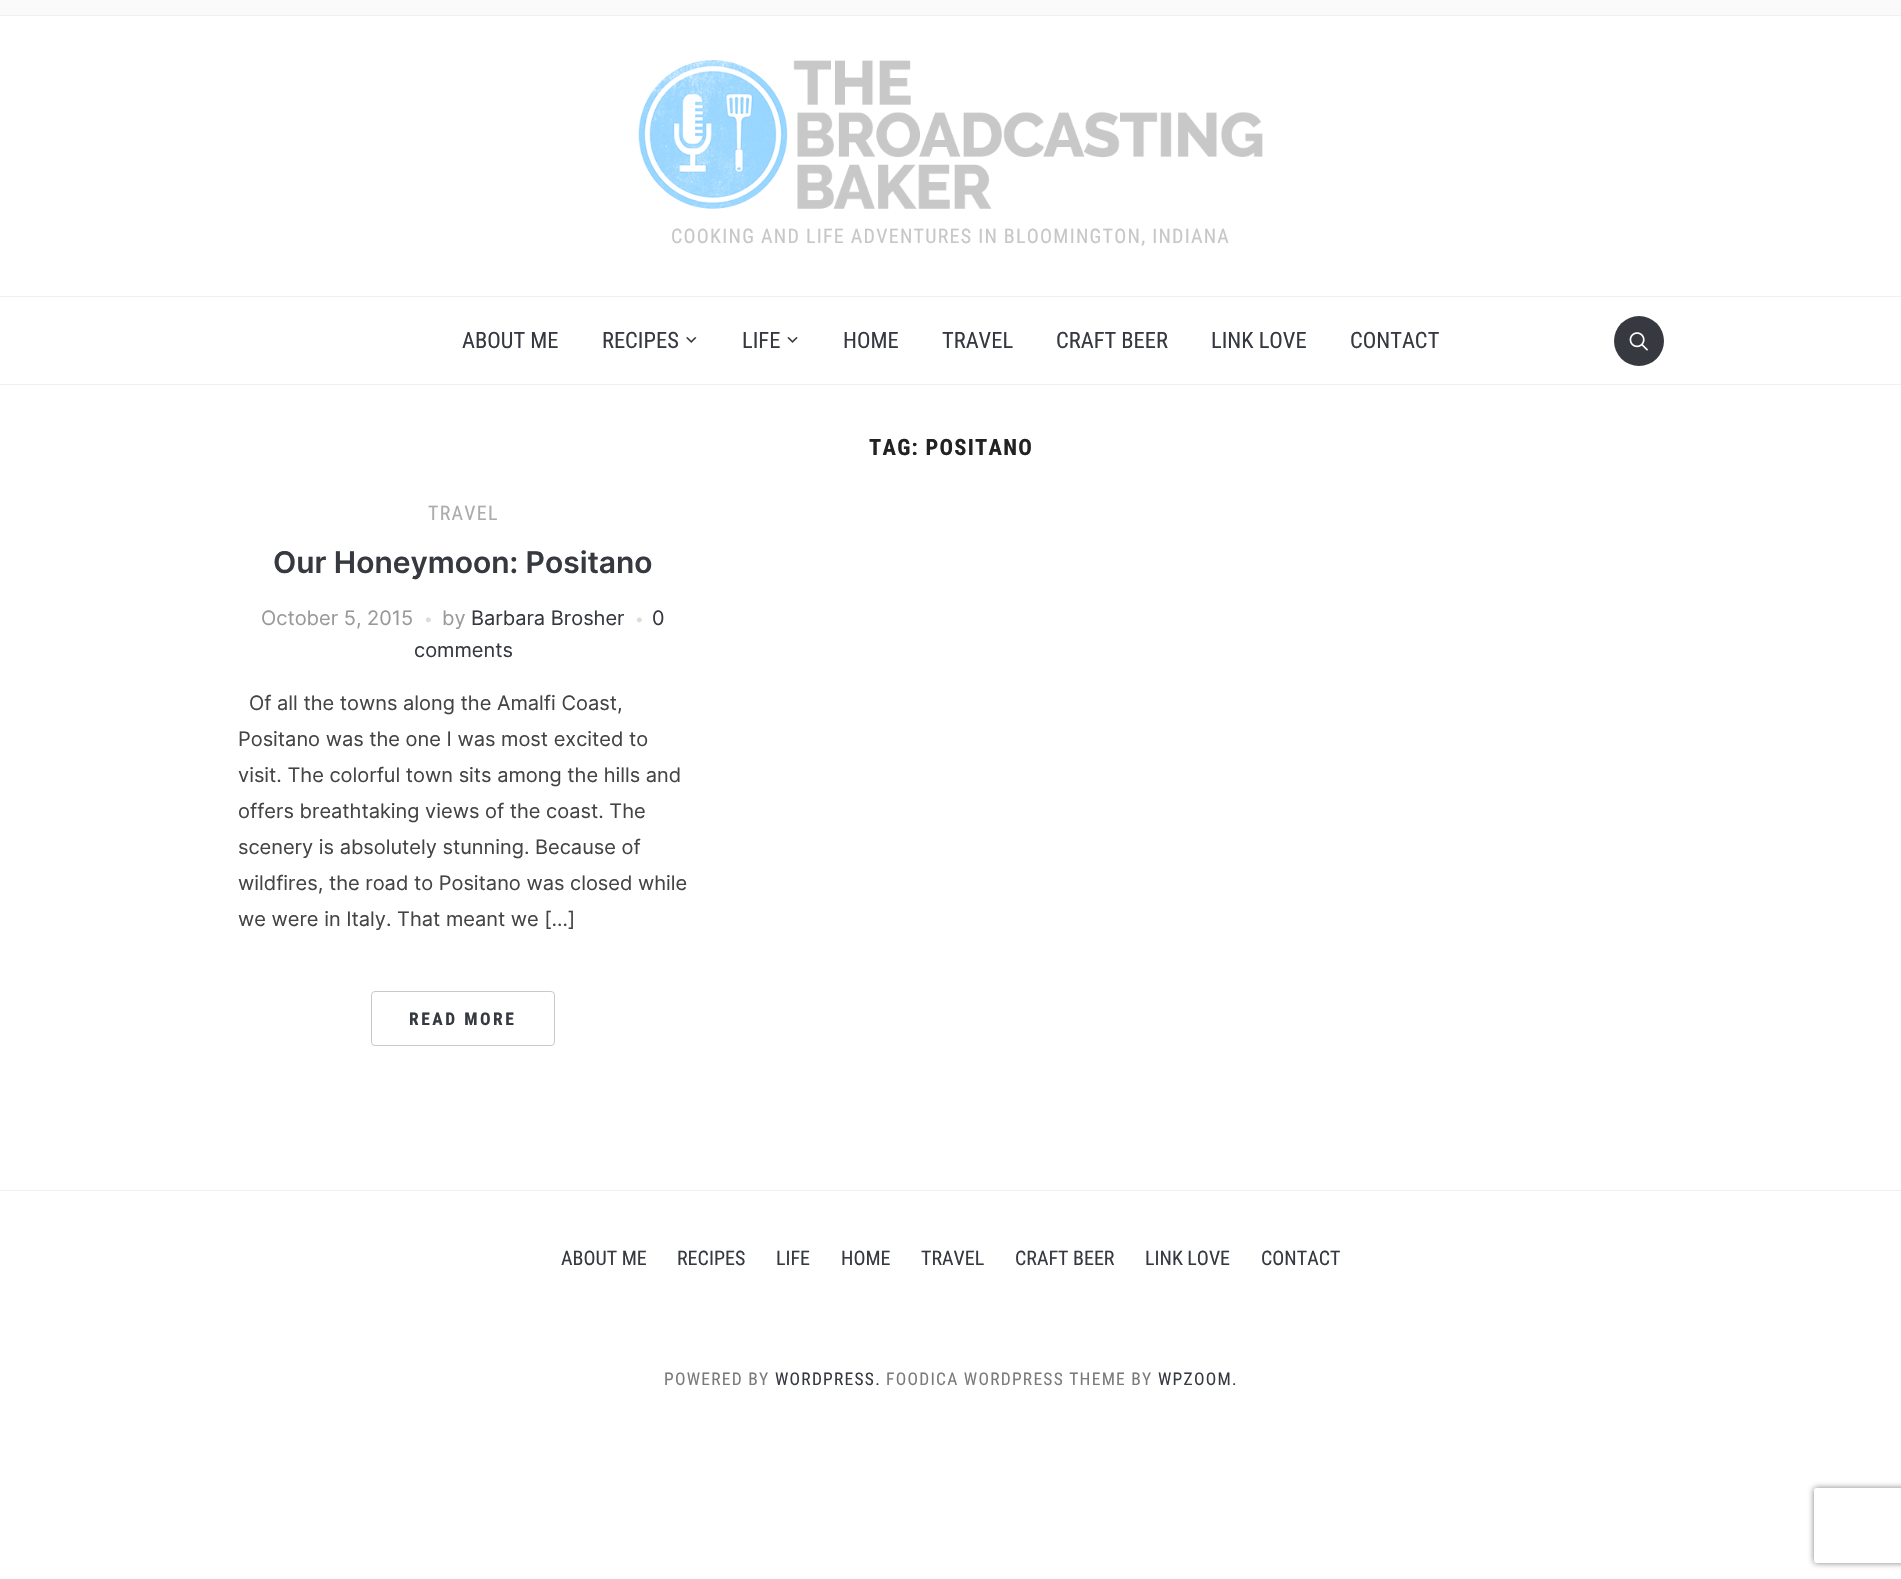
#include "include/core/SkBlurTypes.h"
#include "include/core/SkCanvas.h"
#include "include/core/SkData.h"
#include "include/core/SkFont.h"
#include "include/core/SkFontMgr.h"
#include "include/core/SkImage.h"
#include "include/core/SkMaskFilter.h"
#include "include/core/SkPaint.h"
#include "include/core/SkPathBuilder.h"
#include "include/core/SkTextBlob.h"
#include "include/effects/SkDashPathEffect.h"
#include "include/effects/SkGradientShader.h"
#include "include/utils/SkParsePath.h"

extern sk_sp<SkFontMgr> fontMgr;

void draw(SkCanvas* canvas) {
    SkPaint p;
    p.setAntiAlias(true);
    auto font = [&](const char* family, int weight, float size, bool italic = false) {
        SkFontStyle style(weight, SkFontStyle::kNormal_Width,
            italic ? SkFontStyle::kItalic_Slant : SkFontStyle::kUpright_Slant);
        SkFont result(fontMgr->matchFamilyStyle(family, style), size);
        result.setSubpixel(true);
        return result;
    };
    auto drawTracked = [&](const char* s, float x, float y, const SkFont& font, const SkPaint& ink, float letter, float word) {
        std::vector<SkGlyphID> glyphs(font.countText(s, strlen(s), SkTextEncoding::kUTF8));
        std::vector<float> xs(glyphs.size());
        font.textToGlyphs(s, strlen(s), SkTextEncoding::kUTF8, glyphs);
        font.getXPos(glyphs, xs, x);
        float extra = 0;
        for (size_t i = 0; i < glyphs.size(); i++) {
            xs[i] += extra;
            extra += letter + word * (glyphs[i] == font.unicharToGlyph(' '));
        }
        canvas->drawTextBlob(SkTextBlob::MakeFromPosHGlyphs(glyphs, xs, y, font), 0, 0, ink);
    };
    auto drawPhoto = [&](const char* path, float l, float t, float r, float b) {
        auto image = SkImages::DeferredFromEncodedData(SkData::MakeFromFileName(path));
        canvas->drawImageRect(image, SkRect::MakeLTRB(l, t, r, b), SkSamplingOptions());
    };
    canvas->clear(0xFFFFFFFF);
    p.setColor(0xFFFAFAFA);
    canvas->drawRect(SkRect::MakeLTRB(0, 0, 1901, 15), p);
    p.setColor(0xFFF0F0F0);
    canvas->drawRect(SkRect::MakeLTRB(0, 15, 1901, 16), p);
    drawPhoto("media/1.png", 638, 60, 1263, 209);
    auto font1 = font("Roboto Condensed", 400, 20);
    p.setColor(0xFFC7C7C7);
    drawTracked("COOKING AND LIFE ADVENTURES IN BLOOMINGTON, INDIANA", 671, 243, font1, p, 1.25f, 0);
    p.setColor(0xFFF0F0F0);
    canvas->drawRect(SkRect::MakeLTRB(0, 296, 1901, 297), p);
    canvas->drawRect(SkRect::MakeLTRB(0, 384, 1901, 385), p);
    auto font2 = font("Roboto Condensed", 400, 22.5f);
    p.setColor(0xFF363940);
    canvas->drawString("ABOUT ME", 462, 348, font2, p);
    canvas->drawString("RECIPES", 602, 348, font2, p);
    drawPhoto("media/2.png", 686, 337, 697, 343);
    canvas->drawString("LIFE", 742, 348, font2, p);
    drawPhoto("media/3.png", 787, 337, 798, 343);
    {
        const struct { const char* s; float x, y; } items[] = {
            {"HOME", 843, 348},
            {"TRAVEL", 942, 348},
            {"CRAFT BEER", 1056, 348},
            {"LINK LOVE", 1211, 348},
            {"CONTACT", 1350, 348},
        };
        for (auto [s, x, y] : items) {
            canvas->drawString(s, x, y, font2, p);
        }
    }
    canvas->drawCircle(1639, 341, 25, p);
    drawPhoto("media/4.png", 1629, 332, 1648, 351);
    auto font3 = font("Roboto Condensed", 700, 22.5f);
    p.setColor(0xFF222222);
    drawTracked("TAG: POSITANO", 869, 455, font3, p, 1.25f, 0);
    p.setColor(0xFFACACAC);
    drawTracked("TRAVEL", 428, 520, font1, p, 1.25f, 0);
    auto font4 = font("Inter", 600, 30);
    p.setColor(0xFF363940);
    canvas->drawString("Our Honeymoon: Positano", 273, 573, font4, p);
    auto font5 = font("Inter", 400, 20);
    p.setColor(0xFF999999);
    canvas->drawString("October 5, 2015", 261, 625, font5, p);
    auto font6 = font("Liberation Sans", 400, 11);
    p.setColor(0xFFDBDDDD);
    canvas->drawString("●", 425, 623, font6, p);
    p.setColor(0xFF999999);
    canvas->drawString("by", 442, 625, font5, p);
    p.setColor(0xFF363940);
    canvas->drawString("Barbara Brosher", 471, 625, font5, p);
    p.setColor(0xFFDBDDDD);
    canvas->drawString("●", 636, 623, font6, p);
    p.setColor(0xFF363940);
    canvas->drawString("0", 652, 625, font5, p);
    canvas->drawString("comments", 414, 657, font5, p);
    p.setColor(0xFF444444);
    {
        const struct { const char* s; float x, y; } items[] = {
            {"Of all the towns along the Amalfi Coast,", 249, 710},
            {"Positano was the one I was most excited to", 238, 746},
            {"visit. The colorful town sits among the hills and", 238, 782},
            {"offers breathtaking views of the coast. The", 238, 818},
            {"scenery is absolutely stunning. Because of", 238, 854},
            {"wildfires, the road to Positano was closed while", 238, 890},
            {"we were in Italy. That meant we […]", 238, 926},
        };
        for (auto [s, x, y] : items) {
            canvas->drawString(s, x, y, font5, p);
        }
    }
    p.setStyle(SkPaint::kStroke_Style);
    p.setStrokeWidth(1);
    p.setColor(0xFFC7C9CF);
    canvas->drawRoundRect(SkRect::MakeLTRB(371.5f, 991.5f, 554.5f, 1045.5f), 3.5f, 3.5f, p);
    auto font7 = font("Roboto Condensed", 700, 17.5f);
    p.setStyle(SkPaint::kFill_Style);
    p.setColor(0xFF363940);
    drawTracked("READ MORE", 409, 1025, font7, p, 2.5f, 0);
    p.setColor(0xFFF0F0F0);
    canvas->drawRect(SkRect::MakeLTRB(0, 1190, 1901, 1191), p);
    p.setColor(0xFF363940);
    {
        const struct { const char* s; float x, y; } items[] = {
            {"ABOUT ME", 561, 1265},
            {"RECIPES", 677, 1265},
            {"LIFE", 776, 1265},
            {"HOME", 841, 1265},
            {"TRAVEL", 921, 1265},
            {"CRAFT BEER", 1015, 1265},
            {"LINK LOVE", 1145, 1265},
            {"CONTACT", 1261, 1265},
        };
        for (auto [s, x, y] : items) {
            canvas->drawString(s, x, y, font1, p);
        }
    }
    auto font8 = font("Roboto Condensed", 400, 17.5f);
    p.setColor(0xFF7B7B7B);
    drawTracked("POWERED BY", 664, 1385, font8, p, 1.25f, 0);
    p.setColor(0xFF363940);
    drawTracked("WORDPRESS.", 775, 1385, font8, p, 1.25f, 0);
    p.setColor(0xFF7B7B7B);
    drawTracked("FOODICA WORDPRESS THEME BY", 886, 1385, font8, p, 1.25f, 0);
    p.setColor(0xFF363940);
    drawTracked("WPZOOM.", 1158, 1385, font8, p, 1.25f, 0);
    canvas->save();
    canvas->clipPath(SkPathBuilder(SkPathFillType::kEvenOdd).moveTo(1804, 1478).lineTo(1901, 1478).lineTo(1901, 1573).lineTo(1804, 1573).close().moveTo(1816.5f, 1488).lineTo(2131.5f, 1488).cubicTo(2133, 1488, 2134, 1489, 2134, 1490.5f).lineTo(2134, 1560.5f).cubicTo(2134, 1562, 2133, 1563, 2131.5f, 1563).lineTo(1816.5f, 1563).cubicTo(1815, 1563, 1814, 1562, 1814, 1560.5f).lineTo(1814, 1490.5f).cubicTo(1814, 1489, 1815, 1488, 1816.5f, 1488).close().detach(), true);
    p.setColor(0xFF808080);
    p.setMaskFilter(SkMaskFilter::MakeBlur(kNormal_SkBlurStyle, 3));
    canvas->drawRoundRect(SkRect::MakeLTRB(1814, 1488, 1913, 1563), 2.5f, 2.5f, p);
    p.setMaskFilter(nullptr);
    canvas->restore();
}
